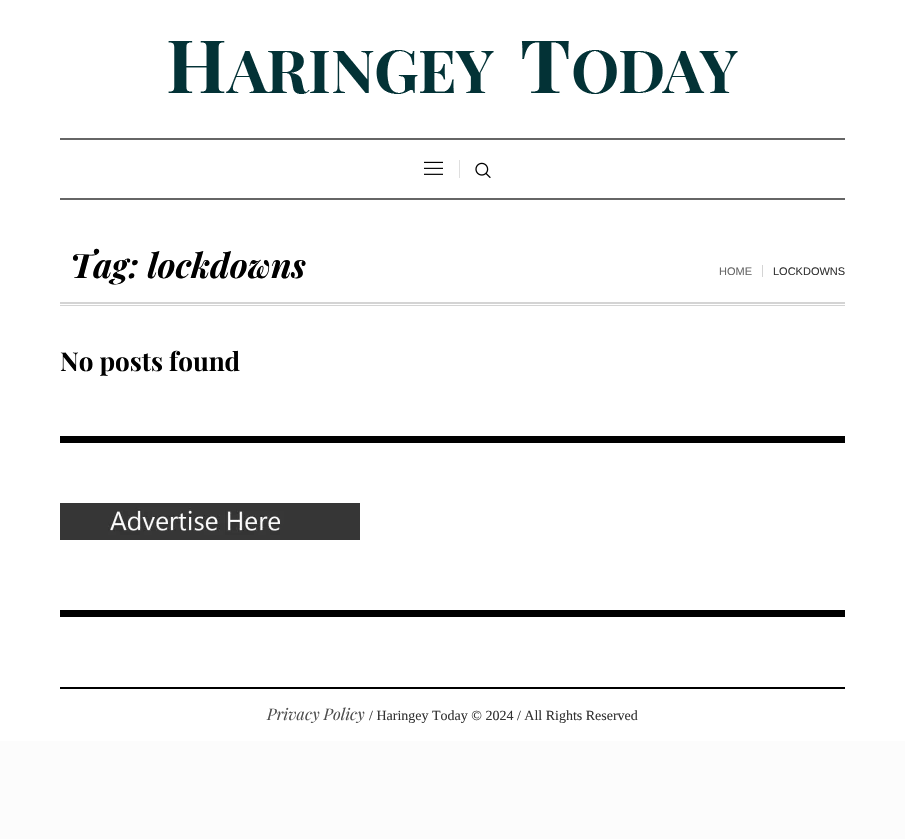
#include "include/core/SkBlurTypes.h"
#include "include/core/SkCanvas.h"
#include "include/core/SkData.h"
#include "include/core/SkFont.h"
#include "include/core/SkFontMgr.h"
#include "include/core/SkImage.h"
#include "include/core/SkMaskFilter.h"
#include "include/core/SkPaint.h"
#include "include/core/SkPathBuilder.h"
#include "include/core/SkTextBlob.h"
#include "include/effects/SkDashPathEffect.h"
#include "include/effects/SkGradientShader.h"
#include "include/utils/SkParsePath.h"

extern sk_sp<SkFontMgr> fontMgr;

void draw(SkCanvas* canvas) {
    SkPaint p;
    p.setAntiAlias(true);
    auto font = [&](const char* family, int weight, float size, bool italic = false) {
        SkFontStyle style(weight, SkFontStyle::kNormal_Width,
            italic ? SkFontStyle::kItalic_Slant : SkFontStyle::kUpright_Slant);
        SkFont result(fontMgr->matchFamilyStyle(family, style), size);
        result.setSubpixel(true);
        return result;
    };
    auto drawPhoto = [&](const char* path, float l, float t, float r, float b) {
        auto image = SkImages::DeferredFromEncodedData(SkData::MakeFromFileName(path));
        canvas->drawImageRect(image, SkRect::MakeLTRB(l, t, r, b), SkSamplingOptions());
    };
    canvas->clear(0xFFFCFCFC);
    p.setColor(0xFFFFFFFF);
    canvas->drawRect(SkRect::MakeLTRB(0, 0, 905, 200), p);
    drawPhoto("media/1.png", 168, 41, 738, 94);
    p.setColor(0xFF666666);
    canvas->drawRect(SkRect::MakeLTRB(60, 138, 845, 140), p);
    canvas->drawRect(SkRect::MakeLTRB(60, 198, 845, 200), p);
    drawPhoto("media/2.png", 424, 161, 443, 175);
    p.setColor(0xFFDFDFDF);
    canvas->drawRect(SkRect::MakeLTRB(459, 160, 460, 178), p);
    drawPhoto("media/3.png", 475, 162, 491, 178);
    p.setColor(0xFFFFFFFF);
    canvas->drawRect(SkRect::MakeLTRB(0, 200, 905, 741), p);
    p.setColor(0xFF000000);
    canvas->drawRect(SkRect::MakeLTRB(60, 436, 845, 443), p);
    drawPhoto("media/4.png", 60, 503, 360, 540);
    p.setColor(0xFFD4D4D4);
    canvas->drawRect(SkRect::MakeLTRB(60, 302, 845, 304), p);
    canvas->drawRect(SkRect::MakeLTRB(60, 305, 845, 306), p);
    auto font1 = font("Playfair Display", 700, 34, true);
    p.setColor(0xFF000000);
    canvas->drawString("Tag: lockdowns", 70, 278, font1, p);
    auto font2 = font("Liberation Sans", 400, 11);
    p.setColor(0xFF666666);
    canvas->drawString("HOME", 719, 275, font2, p);
    p.setColor(0xFFD4D4D4);
    canvas->drawRect(SkRect::MakeLTRB(762, 265, 763, 277), p);
    p.setColor(0xFF333333);
    canvas->drawString("LOCKDOWNS", 773, 275, font2, p);
    auto font3 = font("Playfair Display", 700, 26);
    p.setColor(0xFF000000);
    canvas->drawString("No posts found", 60, 371, font3, p);
    canvas->drawRect(SkRect::MakeLTRB(60, 610, 845, 617), p);
    canvas->drawRect(SkRect::MakeLTRB(60, 687, 845, 689), p);
    auto font4 = font("Playfair Display", 400, 16, true);
    p.setColor(0xFF4D4D4D);
    canvas->drawString("Privacy Policy", 267, 720, font4, p);
    auto font5 = font("Liberation Serif", 400, 14);
    p.setColor(0xFF333333);
    canvas->drawString("/ Haringey Today © 2024 / All Rights Reserved", 369, 720, font5, p);
}
